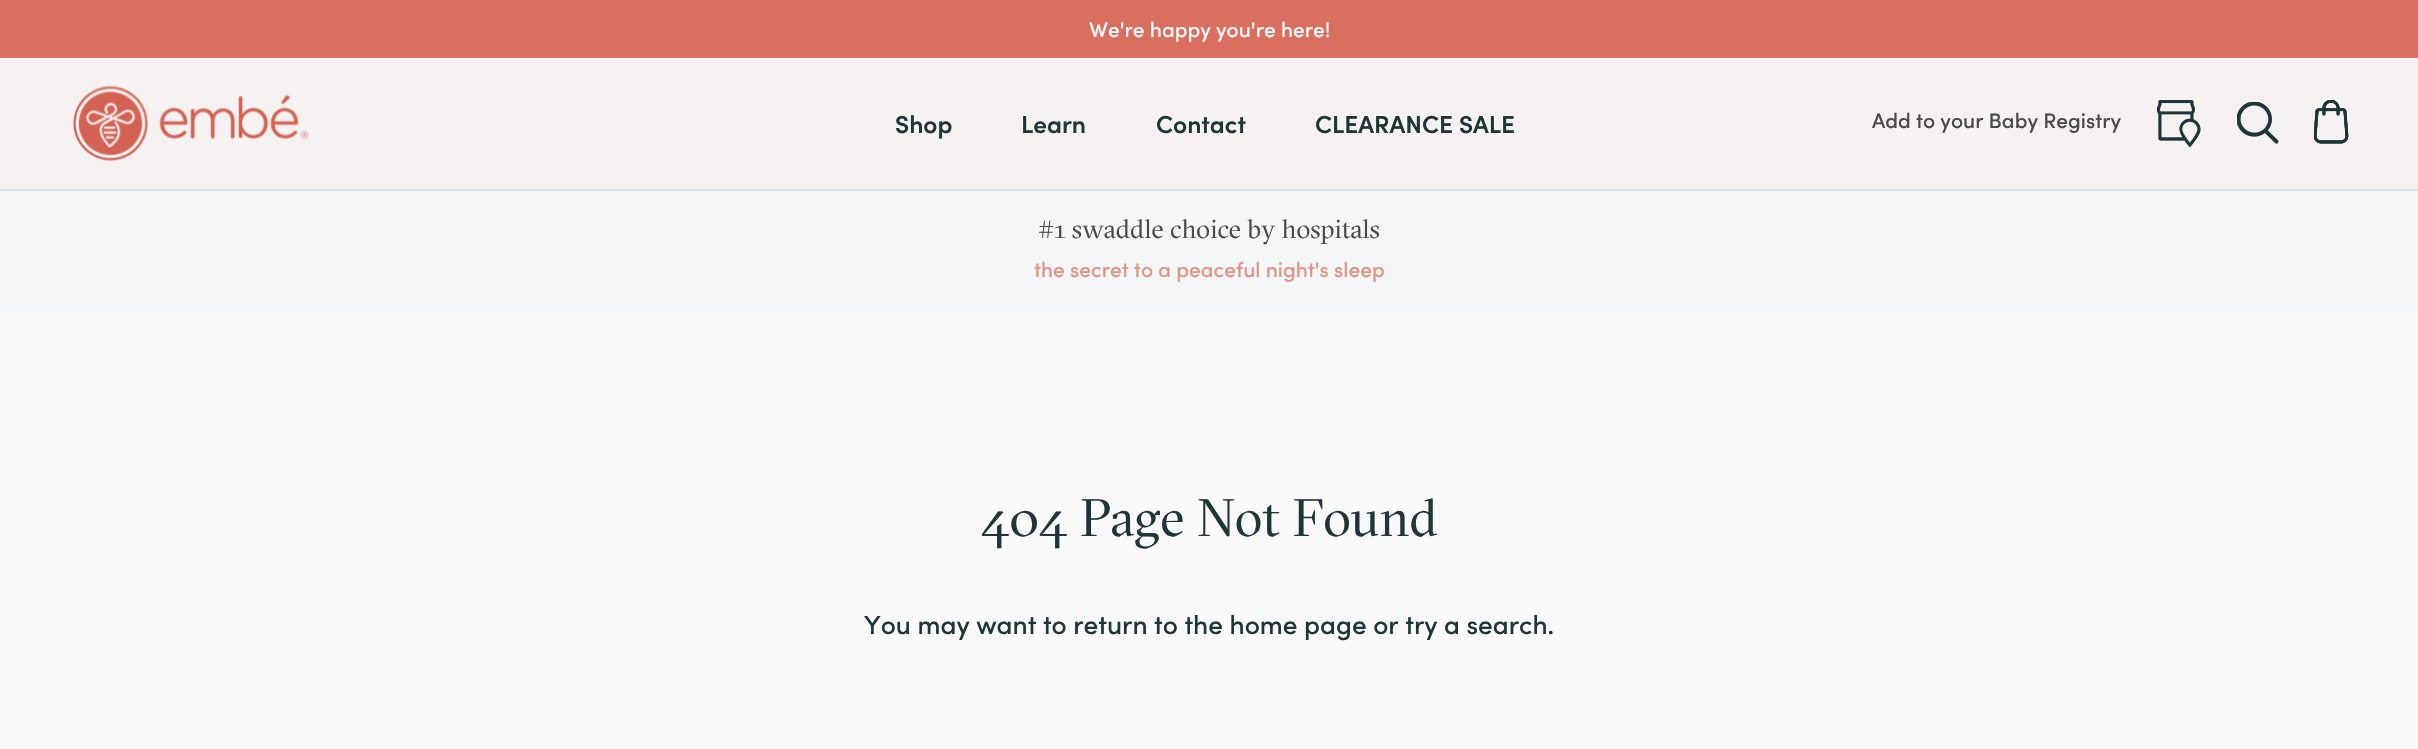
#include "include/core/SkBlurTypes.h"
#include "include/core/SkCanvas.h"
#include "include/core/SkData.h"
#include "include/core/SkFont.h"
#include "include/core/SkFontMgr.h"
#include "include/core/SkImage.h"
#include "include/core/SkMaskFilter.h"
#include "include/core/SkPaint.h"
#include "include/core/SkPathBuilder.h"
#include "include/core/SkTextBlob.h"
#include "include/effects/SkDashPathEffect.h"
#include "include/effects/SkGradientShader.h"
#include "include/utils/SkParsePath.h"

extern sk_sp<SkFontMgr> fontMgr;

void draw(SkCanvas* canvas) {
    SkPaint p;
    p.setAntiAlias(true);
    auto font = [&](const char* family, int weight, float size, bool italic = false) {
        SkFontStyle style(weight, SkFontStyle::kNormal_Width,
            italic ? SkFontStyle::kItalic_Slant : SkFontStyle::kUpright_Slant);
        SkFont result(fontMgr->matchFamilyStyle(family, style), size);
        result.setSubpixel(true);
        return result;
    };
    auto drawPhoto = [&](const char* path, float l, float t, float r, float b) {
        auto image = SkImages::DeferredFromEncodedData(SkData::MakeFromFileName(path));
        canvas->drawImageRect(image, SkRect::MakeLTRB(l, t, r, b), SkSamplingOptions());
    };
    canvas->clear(0xFFFAFAFA);
    p.setColor(0xFFD96F5F);
    canvas->drawRect(SkRect::MakeLTRB(0, 0, 2418, 58), p);
    auto font1 = font("Sofia", 500, 21);
    p.setColor(0xFFF4F6F8);
    canvas->drawString("We're happy you're here!", 1089, 37, font1, p);
    p.setColor(0xFFF5F2F1);
    canvas->drawRect(SkRect::MakeLTRB(0, 58, 2418, 189), p);
    p.setColor(0xFFDFE3E8);
    canvas->drawRect(SkRect::MakeLTRB(0, 189, 2418, 191), p);
    drawPhoto("media/1.png", 73, 85, 309, 161);
    auto font2 = font("Sofia", 600, 24.5f);
    p.setColor(0xFF1E3638);
    {
        const struct { const char* s; float x, y; } items[] = {
            {"Shop", 895, 133},
            {"Learn", 1021, 133},
            {"Contact", 1156, 133},
            {"CLEARANCE SALE", 1315, 133},
        };
        for (auto [s, x, y] : items) {
            canvas->drawString(s, x, y, font2, p);
        }
    }
    p.setColor(0xFF484948);
    canvas->drawString("Add to your Baby Registry", 1872, 128, font1, p);
    drawPhoto("media/2.png", 2156, 100, 2201, 147);
    drawPhoto("media/3.png", 2237, 102, 2279, 144);
    drawPhoto("media/4.png", 2314, 100, 2349, 144);
    p.setColor(0xFFF4F6F8);
    canvas->drawRect(SkRect::MakeLTRB(0, 191, 2418, 312), p);
    auto font3 = font("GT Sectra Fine", 400, 26.25f);
    p.setColor(0xFF484948);
    canvas->drawString("#1 swaddle choice by hospitals", 1038, 238, font3, p);
    p.setColor(0xFFE29384);
    canvas->drawString("the secret to a peaceful night's sleep", 1034, 277, font1, p);
    auto font4 = font("GT Sectra Fine", 400, 52.5f);
    p.setColor(0xFF1E3638);
    canvas->drawString("404 Page Not Found", 981, 536, font4, p);
    auto font5 = font("Sofia", 500, 26.25f);
    canvas->drawString("You may want to return to the home page or try a search.", 864, 634, font5, p);
}
